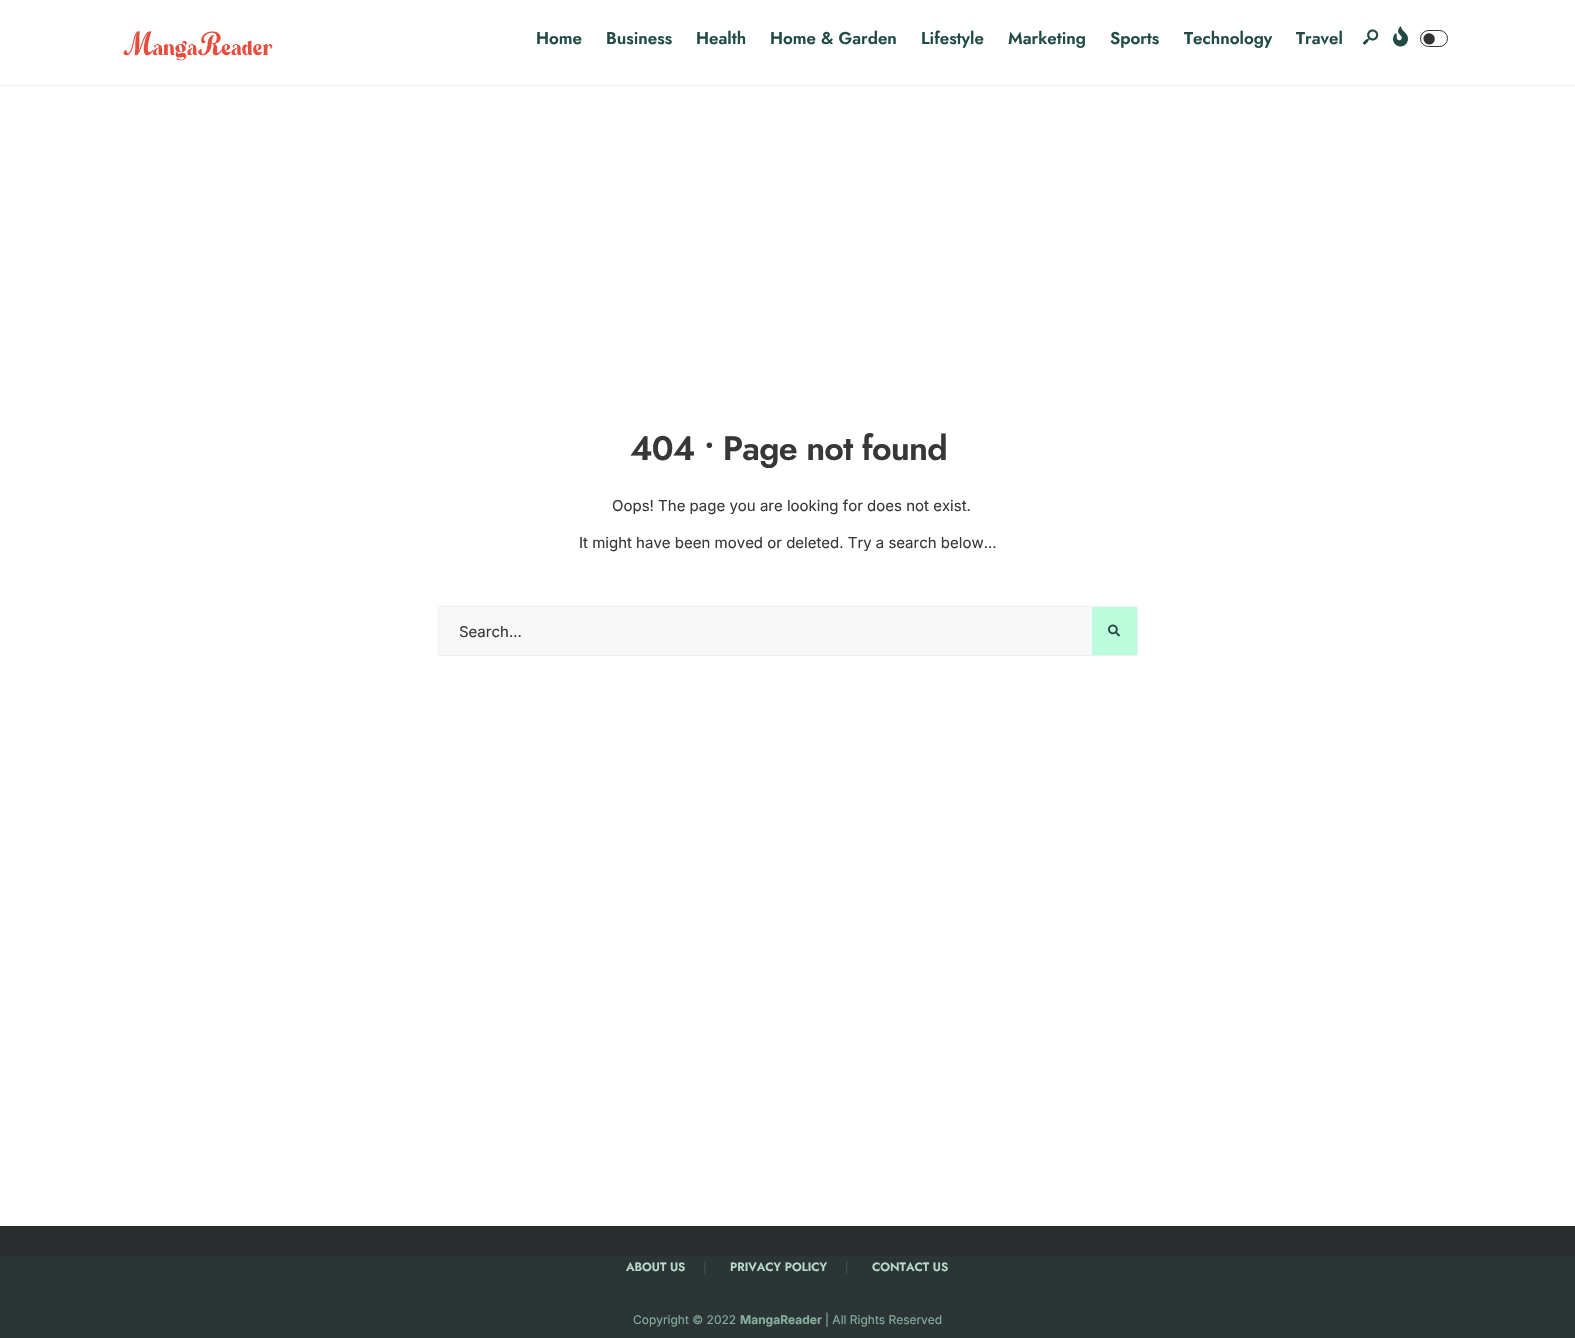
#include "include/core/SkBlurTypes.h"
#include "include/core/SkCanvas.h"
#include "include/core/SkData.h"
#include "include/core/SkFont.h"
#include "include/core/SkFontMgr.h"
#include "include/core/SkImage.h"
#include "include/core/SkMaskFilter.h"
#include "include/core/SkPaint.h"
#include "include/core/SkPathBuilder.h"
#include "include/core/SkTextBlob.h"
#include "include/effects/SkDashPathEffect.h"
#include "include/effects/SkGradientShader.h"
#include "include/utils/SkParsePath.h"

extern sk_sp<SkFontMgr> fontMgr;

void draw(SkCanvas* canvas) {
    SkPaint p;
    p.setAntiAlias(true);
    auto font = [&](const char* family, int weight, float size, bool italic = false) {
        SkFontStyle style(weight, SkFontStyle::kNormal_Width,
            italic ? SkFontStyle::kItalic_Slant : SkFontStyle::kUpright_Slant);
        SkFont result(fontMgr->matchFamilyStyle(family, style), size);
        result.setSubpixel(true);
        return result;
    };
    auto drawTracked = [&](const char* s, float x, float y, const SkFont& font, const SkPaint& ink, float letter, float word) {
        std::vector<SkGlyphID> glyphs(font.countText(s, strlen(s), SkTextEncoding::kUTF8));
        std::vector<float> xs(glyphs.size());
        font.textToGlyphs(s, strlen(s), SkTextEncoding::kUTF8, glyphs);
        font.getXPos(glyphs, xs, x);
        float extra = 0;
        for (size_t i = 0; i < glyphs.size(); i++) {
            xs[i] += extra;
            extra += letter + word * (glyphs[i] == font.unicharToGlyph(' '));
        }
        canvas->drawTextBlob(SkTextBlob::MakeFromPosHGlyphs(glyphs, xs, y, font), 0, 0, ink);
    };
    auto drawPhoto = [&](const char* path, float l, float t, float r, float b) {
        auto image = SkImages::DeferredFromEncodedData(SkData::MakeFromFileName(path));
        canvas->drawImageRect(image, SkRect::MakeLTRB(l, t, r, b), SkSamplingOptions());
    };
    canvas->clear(0xFFFFFFFF);
    p.setColor(0xFFEFEFEF);
    canvas->drawRect(SkRect::MakeLTRB(0, 85, 1575, 86), p);
    drawPhoto("media/1.png", 123, 31, 273, 61);
    auto font1 = font("Jost", 600, 17);
    p.setColor(0xFF204B45);
    {
        const struct { const char* s; float x, y; } items[] = {
            {"Home", 536, 44},
            {"Business", 606, 44},
            {"Health", 696, 44},
            {"Home & Garden", 770, 44},
            {"Lifestyle", 921, 44},
            {"Marketing", 1008, 44},
            {"Sports", 1110, 44},
            {"Technology", 1184, 44},
            {"Travel", 1296, 44},
        };
        for (auto [s, x, y] : items) {
            canvas->drawString(s, x, y, font1, p);
        }
    }
    drawPhoto("media/2.png", 1363, 29, 1379, 45);
    drawPhoto("media/3.png", 1393, 26, 1408, 47);
    p.setStyle(SkPaint::kStroke_Style);
    p.setStrokeWidth(1);
    p.setColor(0xFF333333);
    canvas->drawRoundRect(SkRect::MakeLTRB(1420.5f, 30.5f, 1447.5f, 46.5f), 8, 8, p);
    p.setStyle(SkPaint::kFill_Style);
    canvas->drawPath(SkPathBuilder().moveTo(1425, 35).cubicTo(1430.5f, 29.5f, 1438.5f, 37.5f, 1433, 43).cubicTo(1428, 48, 1420, 40, 1425, 35).close().detach(), p);
    auto font2 = font("Jost", 600, 34);
    p.setColor(0xFF373737);
    drawTracked("404 • Page not found", 630, 460, font2, p, -0.8f, 0);
    auto font3 = font("Inter", 400, 15);
    canvas->drawString("Oops! The page you are looking for does not exist.", 612, 511, font3, p);
    canvas->drawString("It might have been moved or deleted. Try a search below...", 579, 548, font3, p);
    p.setColor(0xFFF8F8F8);
    canvas->drawRoundRect(SkRect::MakeLTRB(438.5f, 606.5f, 1137.5f, 655.5f), 2.5f, 2.5f, p);
    p.setStyle(SkPaint::kStroke_Style);
    p.setColor(0xFFEFEFEF);
    canvas->drawRoundRect(SkRect::MakeLTRB(438.5f, 606.5f, 1137.5f, 655.5f), 2.5f, 2.5f, p);
    p.setStyle(SkPaint::kFill_Style);
    p.setColor(0xFF373737);
    canvas->drawString("Search...", 459, 637, font3, p);
    p.setColor(0xFFBAFCDC);
    canvas->drawRect(SkRect::MakeLTRB(1092, 607, 1137, 655), p);
    drawPhoto("media/4.png", 1108, 624, 1120, 637);
    p.setColor(0xFF292D2D);
    canvas->drawRect(SkRect::MakeLTRB(0, 1226, 1575, 1256), p);
    p.setColor(0xFF2C3535);
    canvas->drawRect(SkRect::MakeLTRB(0, 1256, 1575, 1338), p);
    auto font4 = font("Jost", 600, 12);
    p.setColor(0xFFB8DBCA);
    canvas->drawString("ABOUT US", 626, 1271, font4, p);
    auto font5 = font("Liberation Sans", 400, 13);
    p.setColor(0xFF3E4D4A);
    canvas->drawString("|", 703, 1271, font5, p);
    p.setColor(0xFFB8DBCA);
    canvas->drawString("PRIVACY POLICY", 730, 1271, font4, p);
    p.setColor(0xFF3E4D4A);
    canvas->drawString("|", 845, 1271, font5, p);
    p.setColor(0xFFB8DBCA);
    canvas->drawString("CONTACT US", 872, 1271, font4, p);
    auto font6 = font("Inter", 400, 12);
    p.setColor(0xFF85AF9D);
    canvas->drawString("Copyright © 2022", 633, 1324, font6, p);
    auto font7 = font("Inter", 700, 12);
    canvas->drawString("MangaReader", 740, 1324, font7, p);
    canvas->drawString("| All Rights Reserved", 825, 1324, font6, p);
}
